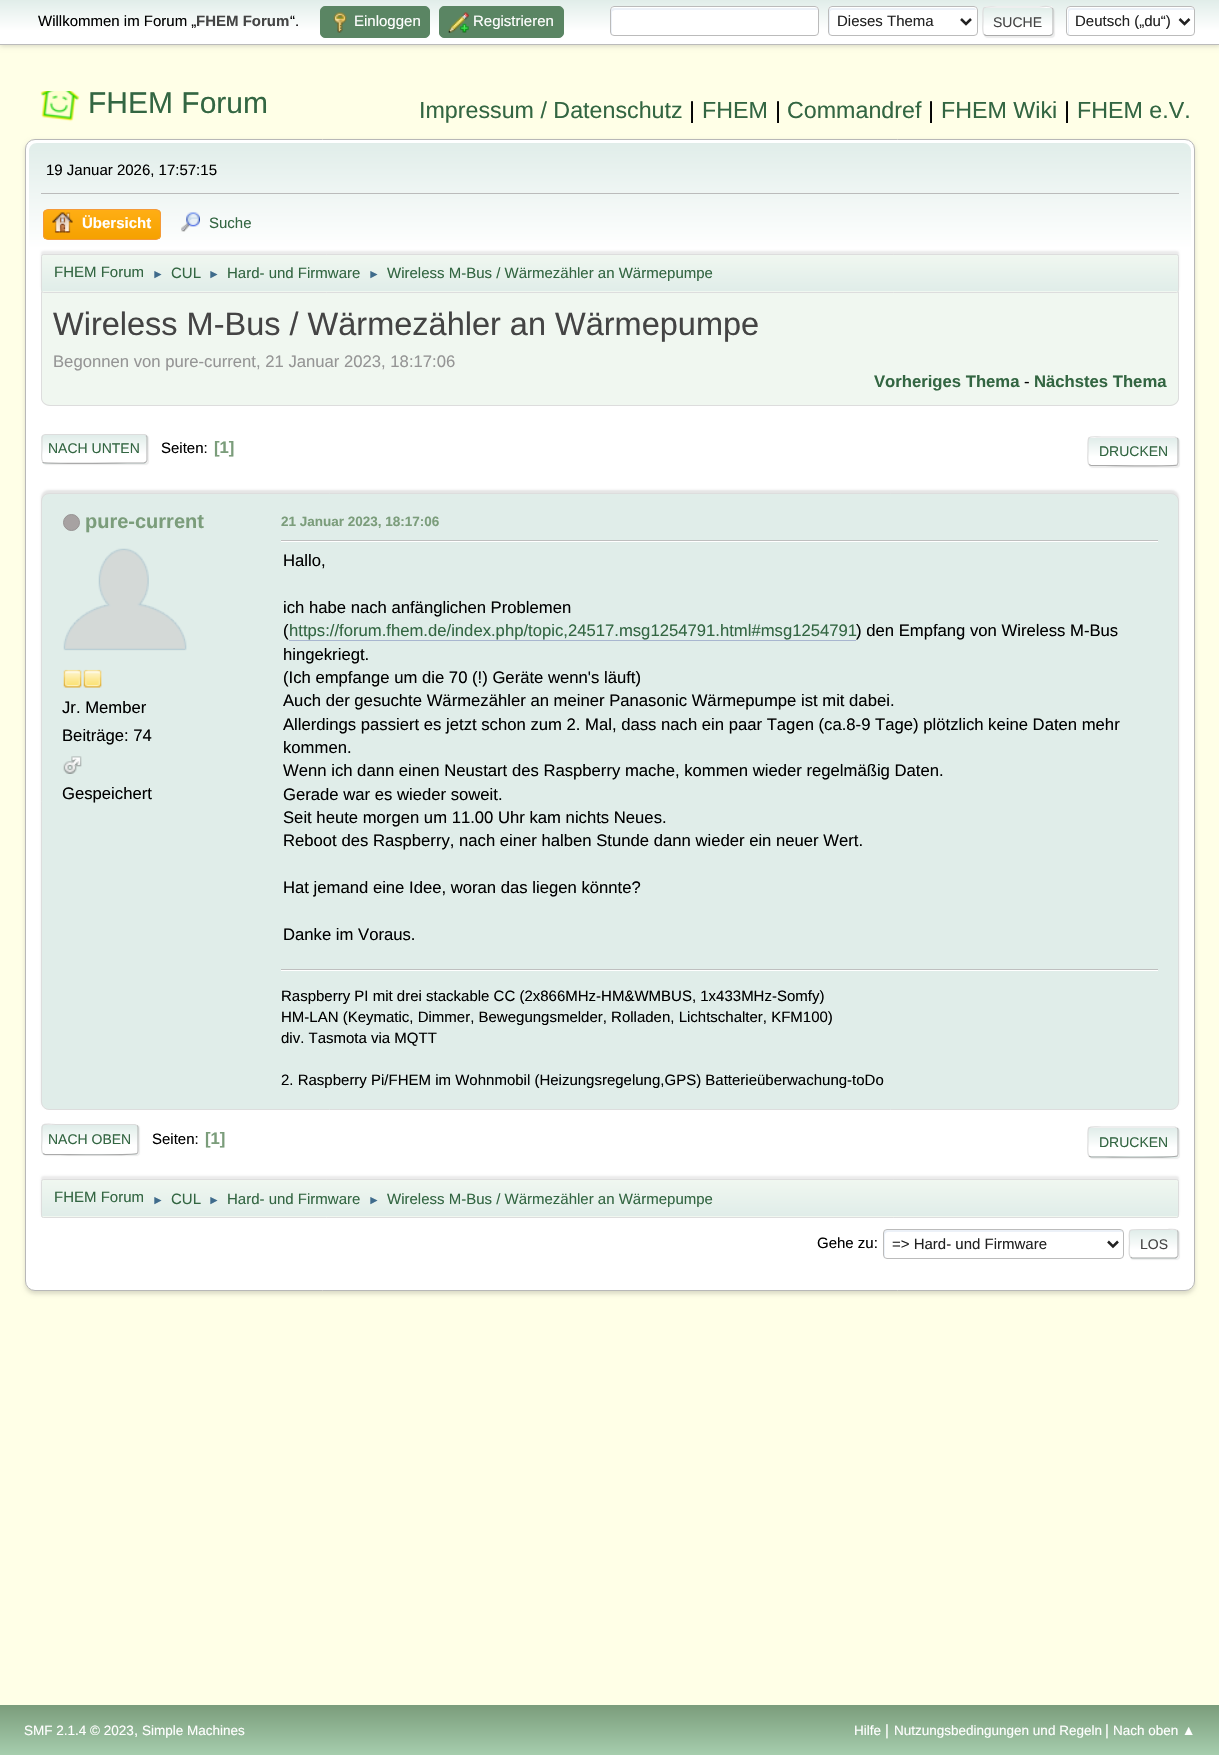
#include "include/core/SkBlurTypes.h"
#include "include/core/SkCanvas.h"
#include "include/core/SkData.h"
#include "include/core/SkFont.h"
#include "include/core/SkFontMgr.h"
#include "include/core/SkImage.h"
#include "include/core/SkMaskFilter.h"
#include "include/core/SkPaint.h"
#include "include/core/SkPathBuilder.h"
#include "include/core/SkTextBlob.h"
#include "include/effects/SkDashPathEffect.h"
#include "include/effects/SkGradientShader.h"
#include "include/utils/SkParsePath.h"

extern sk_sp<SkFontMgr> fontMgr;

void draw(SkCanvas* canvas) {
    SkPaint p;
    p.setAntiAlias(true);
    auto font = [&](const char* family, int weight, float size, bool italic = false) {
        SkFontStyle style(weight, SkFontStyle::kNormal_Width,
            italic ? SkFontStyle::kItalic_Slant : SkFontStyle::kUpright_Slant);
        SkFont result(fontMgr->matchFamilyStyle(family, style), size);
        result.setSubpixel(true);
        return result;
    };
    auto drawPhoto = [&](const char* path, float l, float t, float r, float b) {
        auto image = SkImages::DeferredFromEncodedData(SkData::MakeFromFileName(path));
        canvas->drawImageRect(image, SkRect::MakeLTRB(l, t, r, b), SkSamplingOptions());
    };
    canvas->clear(0xFFFFFFE7);
    p.setColor(0x29000000);
    p.setMaskFilter(SkMaskFilter::MakeBlur(kNormal_SkBlurStyle, 2.5f));
    canvas->drawRect(SkRect::MakeLTRB(0, 1, 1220, 46), p);
    p.setMaskFilter(nullptr);
    {
        const SkColor colors[] = {0xFFE0EDE9, 0xFFFFFFFF};
        const float stops[] = {0, 0.7f};
        const SkPoint ends[] = {{610, 0}, {610, 44}};
        p.setShader(SkGradientShader::MakeLinear(ends, colors, stops, 2, SkTileMode::kClamp));
        p.setAlpha(255);
    }
    canvas->drawRect(SkRect::MakeLTRB(0, 0, 1219, 44), p);
    p.setShader(nullptr);
    p.setColor(0xFFBBBBBB);
    canvas->drawRect(SkRect::MakeLTRB(0, 44, 1219, 45), p);
    auto font1 = font("Liberation Sans", 400, 15);
    p.setColor(0xFF000000);
    canvas->drawString("Willkommen im Forum „", 38, 26, font1, p);
    auto font2 = font("Liberation Sans", 700, 15);
    p.setColor(0xFF444444);
    canvas->drawString("FHEM Forum", 196, 26, font2, p);
    p.setColor(0xFF000000);
    canvas->drawString("“.", 290, 26, font1, p);
    p.setColor(0xFF5A8563);
    canvas->drawRoundRect(SkRect::MakeLTRB(320.5f, 6.5f, 429.5f, 37.5f), 4.5f, 4.5f, p);
    p.setStyle(SkPaint::kStroke_Style);
    p.setStrokeWidth(1);
    canvas->drawRoundRect(SkRect::MakeLTRB(320.5f, 6.5f, 429.5f, 37.5f), 4.5f, 4.5f, p);
    drawPhoto("media/1.png", 333, 12, 347, 33);
    p.setStyle(SkPaint::kFill_Style);
    p.setColor(0xFFFFFFFF);
    canvas->drawString("Einloggen", 354, 26, font1, p);
    p.setColor(0xFF5A8563);
    canvas->drawRoundRect(SkRect::MakeLTRB(439.5f, 6.5f, 563.5f, 37.5f), 4.5f, 4.5f, p);
    p.setStyle(SkPaint::kStroke_Style);
    canvas->drawRoundRect(SkRect::MakeLTRB(439.5f, 6.5f, 563.5f, 37.5f), 4.5f, 4.5f, p);
    drawPhoto("media/2.png", 448, 12, 469, 33);
    p.setStyle(SkPaint::kFill_Style);
    p.setColor(0xFFFFFFFF);
    canvas->drawString("Registrieren", 473, 26, font1, p);
    canvas->drawRoundRect(SkRect::MakeLTRB(610, 6, 819, 36), 4, 4, p);
    p.setColor(0xFFECF1F8);
    canvas->drawPath(SkPathBuilder().moveTo(615, 10).lineTo(816, 10).lineTo(818, 10).cubicTo(818, 9, 817, 8, 816, 8).lineTo(614, 8).cubicTo(612, 8, 611, 9, 611, 10).lineTo(611, 32).cubicTo(611, 33, 611, 34, 612, 35).lineTo(612, 12).cubicTo(612, 11, 614, 10, 615, 10).close().detach(), p);
    p.setStyle(SkPaint::kStroke_Style);
    p.setColor(0xFFBBBBBB);
    canvas->drawRoundRect(SkRect::MakeLTRB(610.5f, 6.5f, 818.5f, 35.5f), 3.5f, 3.5f, p);
    p.setStyle(SkPaint::kFill_Style);
    p.setColor(0xFFFFFFFF);
    canvas->drawRoundRect(SkRect::MakeLTRB(828, 6, 978, 36), 4, 4, p);
    p.setColor(0xFFECF1F8);
    canvas->drawPath(SkPathBuilder().moveTo(832, 10).lineTo(976, 10).cubicTo(976, 9, 975, 8, 974, 8).lineTo(832, 8).cubicTo(830, 8, 829, 9, 829, 10).lineTo(829, 32).cubicTo(829, 33, 829, 34, 830, 35).lineTo(830, 12).cubicTo(830, 11, 831, 10, 832, 10).close().detach(), p);
    p.setStyle(SkPaint::kStroke_Style);
    p.setColor(0xFFBBBBBB);
    canvas->drawRoundRect(SkRect::MakeLTRB(828.5f, 6.5f, 977.5f, 35.5f), 3.5f, 3.5f, p);
    p.setStrokeWidth(2.5f);
    p.setColor(0xFF222222);
    canvas->drawPath(SkPathBuilder().moveTo(961, 19).lineTo(966, 24).lineTo(971, 19).detach(), p);
    p.setStyle(SkPaint::kFill_Style);
    canvas->drawString("Dieses Thema", 837, 26, font1, p);
    p.setColor(0x91DDDDDD);
    p.setMaskFilter(SkMaskFilter::MakeBlur(kNormal_SkBlurStyle, 0.5f));
    canvas->drawRoundRect(SkRect::MakeLTRB(984, 8, 1055, 38), 4, 4, p);
    p.setMaskFilter(nullptr);
    canvas->save();
    canvas->clipPath(SkPathBuilder().moveTo(987, 6).lineTo(1050, 6).cubicTo(1052, 6, 1054, 8, 1054, 10).lineTo(1054, 32).cubicTo(1054, 34, 1052, 36, 1050, 36).lineTo(987, 36).cubicTo(985, 36, 983, 34, 983, 32).lineTo(983, 10).cubicTo(983, 8, 985, 6, 987, 6).close().detach(), true);
    {
        const SkColor colors[] = {0xFFE0EDE9, 0xFFFFFFFF};
        const float stops[] = {0, 0.7f};
        const SkPoint ends[] = {{1018, -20}, {1018, 7.5f}};
        p.setShader(SkGradientShader::MakeLinear(ends, colors, stops, 2, SkTileMode::kClamp));
        p.setAlpha(255);
    }
    canvas->drawRect(SkRect::MakeLTRB(983, 6, 1054, 8), p);
    {
        const SkColor colors[] = {0xFFE0EDE9, 0xFFFFFFFF};
        const float stops[] = {0, 0.7f};
        const SkPoint ends[] = {{1018, 7.5f}, {1018, 35}};
        p.setShader(SkGradientShader::MakeLinear(ends, colors, stops, 2, SkTileMode::kClamp));
        p.setAlpha(255);
    }
    canvas->drawRect(SkRect::MakeLTRB(983, 8, 1054, 35), p);
    {
        const SkColor colors[] = {0xFFE0EDE9, 0xFFFFFFFF};
        const float stops[] = {0, 0.7f};
        const SkPoint ends[] = {{1018, 35}, {1018, 63}};
        p.setShader(SkGradientShader::MakeLinear(ends, colors, stops, 2, SkTileMode::kClamp));
        p.setAlpha(255);
    }
    canvas->drawRect(SkRect::MakeLTRB(983, 35, 1054, 36), p);
    canvas->restore();
    p.setStyle(SkPaint::kStroke_Style);
    p.setStrokeWidth(1.2f);
    p.setShader(nullptr);
    p.setColor(0xFFBBBBBB);
    canvas->drawPath(SkPathBuilder().moveTo(1052, 8).cubicTo(1053, 8.5f, 1053, 9, 1053, 10).lineTo(1053, 32.5f).cubicTo(1053, 33.5f, 1053, 34, 1052, 34.5f).detach(), p);
    p.setColor(0xFFAAAAAA);
    canvas->drawPath(SkPathBuilder().moveTo(1052, 34.5f).lineTo(1050, 35.5f).lineTo(986, 35.5f).lineTo(984, 34.5f).detach(), p);
    p.setColor(0xFFDDDDDD);
    canvas->drawPath(SkPathBuilder().moveTo(984, 34.5f).cubicTo(982, 32.5f, 983, 24, 983, 21).cubicTo(983, 5, 980.5f, 7, 997, 7).lineTo(1039.5f, 7).cubicTo(1039.5f, 7, 1049.5f, 5.5f, 1052, 8).detach(), p);
    auto font3 = font("Liberation Sans", 400, 14);
    p.setStyle(SkPaint::kFill_Style);
    p.setColor(0xFF444444);
    canvas->drawString("SUCHE", 993, 27, font3, p);
    p.setColor(0xFFFFFFFF);
    canvas->drawRoundRect(SkRect::MakeLTRB(1066, 6, 1195, 36), 4, 4, p);
    p.setColor(0xFFECF1F8);
    canvas->drawPath(SkPathBuilder().moveTo(1071, 10).lineTo(1192, 10).lineTo(1194, 10).cubicTo(1194, 9, 1193, 8, 1192, 8).lineTo(1070, 8).cubicTo(1069, 8, 1068, 9, 1068, 10).lineTo(1068, 32).cubicTo(1068, 33, 1068, 34, 1069, 35).lineTo(1069, 12).cubicTo(1069, 11, 1070, 10, 1071, 10).close().detach(), p);
    p.setStyle(SkPaint::kStroke_Style);
    p.setStrokeWidth(1);
    p.setColor(0xFFBBBBBB);
    canvas->drawRoundRect(SkRect::MakeLTRB(1066.5f, 6.5f, 1194.5f, 35.5f), 3.5f, 3.5f, p);
    p.setStrokeWidth(2.5f);
    p.setColor(0xFF222222);
    canvas->drawPath(SkPathBuilder().moveTo(1179.5f, 19).lineTo(1184.5f, 24).lineTo(1189.5f, 19).detach(), p);
    p.setStyle(SkPaint::kFill_Style);
    canvas->drawString("Deutsch („du“)", 1075, 26, font1, p);
    drawPhoto("media/3.png", 40, 91, 80, 122);
    auto font4 = font("Liberation Sans", 400, 30);
    p.setColor(0xFF336642);
    canvas->drawString("FHEM Forum", 88, 113, font4, p);
    auto font5 = font("Liberation Sans", 400, 23.25f);
    canvas->drawString("Impressum / Datenschutz", 419, 118, font5, p);
    p.setColor(0xFF000000);
    canvas->drawString("|", 689, 118, font5, p);
    p.setColor(0xFF336642);
    canvas->drawString("FHEM", 702, 118, font5, p);
    p.setColor(0xFF000000);
    canvas->drawString("|", 775, 118, font5, p);
    p.setColor(0xFF336642);
    canvas->drawString("Commandref", 787, 118, font5, p);
    p.setColor(0xFF000000);
    canvas->drawString("|", 928, 118, font5, p);
    p.setColor(0xFF336642);
    canvas->drawString("FHEM Wiki", 941, 118, font5, p);
    p.setColor(0xFF000000);
    canvas->drawString("|", 1064, 118, font5, p);
    p.setColor(0xFF336642);
    canvas->drawString("FHEM e.V.", 1077, 118, font5, p);
    p.setColor(0x24000000);
    p.setMaskFilter(SkMaskFilter::MakeBlur(kNormal_SkBlurStyle, 2));
    canvas->drawRoundRect(SkRect::MakeLTRB(25, 141, 1195, 1294), 10, 10, p);
    p.setMaskFilter(nullptr);
    p.setColor(0xFFFFFFFF);
    canvas->drawRoundRect(SkRect::MakeLTRB(25.5f, 139.5f, 1194.5f, 1290.5f), 9.5f, 9.5f, p);
    p.setStyle(SkPaint::kStroke_Style);
    p.setStrokeWidth(1);
    p.setColor(0xFFB8B8B8);
    canvas->drawRoundRect(SkRect::MakeLTRB(25.5f, 139.5f, 1194.5f, 1290.5f), 9.5f, 9.5f, p);
    p.setStyle(SkPaint::kFill_Style);
    {
        const SkColor colors[] = {0xFFE0EDE9, 0xFFFFFFFF};
        const float stops[] = {0, 0.7f};
        const SkPoint ends[] = {{610, 142}, {610, 295}};
        p.setShader(SkGradientShader::MakeLinear(ends, colors, stops, 2, SkTileMode::kClamp));
        p.setAlpha(255);
    }
    canvas->drawPath(SkPathBuilder().moveTo(37, 143).lineTo(1183, 143).cubicTo(1187.5f, 143, 1191, 146.5f, 1191, 151).lineTo(1191, 295).lineTo(29, 295).lineTo(29, 151).cubicTo(29, 146.5f, 32.5f, 143, 37, 143).close().detach(), p);
    p.setShader(nullptr);
    p.setColor(0xFFBBBBBB);
    canvas->drawRect(SkRect::MakeLTRB(41, 193, 1179, 194), p);
    p.setColor(0xFF000000);
    canvas->drawString("19 Januar 2026, 17:57:15", 46, 175, font1, p);
    canvas->save();
    canvas->clipPath(SkPathBuilder().moveTo(48, 209).lineTo(156, 209).cubicTo(159, 209, 161, 211, 161, 214).lineTo(161, 235).cubicTo(161, 238, 159, 240, 156, 240).lineTo(48, 240).cubicTo(45, 240, 43, 238, 43, 235).lineTo(43, 214).cubicTo(43, 211, 45, 209, 48, 209).close().detach(), true);
    {
        const SkColor colors[] = {0xFFFFAE14, 0xFFF5A100};
        const float stops[] = {0, 1};
        const SkPoint ends[] = {{102, 210}, {102, 239}};
        p.setShader(SkGradientShader::MakeLinear(ends, colors, stops, 2, SkTileMode::kClamp));
        p.setAlpha(255);
    }
    canvas->drawRect(SkRect::MakeLTRB(43, 210, 161, 239), p);
    canvas->restore();
    p.setStyle(SkPaint::kStroke_Style);
    p.setShader(nullptr);
    p.setColor(0xFFF49A3A);
    canvas->drawRoundRect(SkRect::MakeLTRB(43.5f, 209.5f, 160.5f, 239.5f), 4.5f, 4.5f, p);
    drawPhoto("media/4.png", 52, 212, 73, 233);
    p.setStyle(SkPaint::kFill_Style);
    p.setColor(0xFFFFFFFF);
    canvas->drawString("Übersicht", 82, 228, font2, p);
    drawPhoto("media/5.png", 181, 212, 200, 232);
    p.setColor(0xFF336642);
    canvas->drawString("Suche", 209, 228, font1, p);
    p.setColor(0x14000000);
    p.setMaskFilter(SkMaskFilter::MakeBlur(kNormal_SkBlurStyle, 1));
    canvas->drawRoundRect(SkRect::MakeLTRB(41, 251, 1179, 290), 2.5f, 2.5f, p);
    p.setMaskFilter(nullptr);
    {
        const SkColor colors[] = {0xFFF0F7F0, 0xFFE0EDE9};
        const float stops[] = {0, 1};
        const SkPoint ends[] = {{610, 255}, {610, 291}};
        p.setShader(SkGradientShader::MakeLinear(ends, colors, stops, 2, SkTileMode::kClamp));
        p.setAlpha(255);
    }
    canvas->drawRect(SkRect::MakeLTRB(41, 255, 1179, 291), p);
    canvas->save();
    canvas->clipPath(SkPathBuilder().moveTo(43.5f, 254).lineTo(1176.5f, 254).cubicTo(1178, 254, 1179, 255, 1179, 256.5f).lineTo(1179, 290.5f).cubicTo(1179, 292, 1178, 293, 1176.5f, 293).lineTo(43.5f, 293).cubicTo(42, 293, 41, 292, 41, 290.5f).lineTo(41, 256.5f).cubicTo(41, 255, 42, 254, 43.5f, 254).close().detach(), true);
    {
        const SkColor colors[] = {0xFFF0F7F0, 0xFFE0EDE9};
        const float stops[] = {0, 1};
        const SkPoint ends[] = {{610, 291}, {610, 328}};
        p.setShader(SkGradientShader::MakeLinear(ends, colors, stops, 2, SkTileMode::kClamp));
        p.setAlpha(255);
    }
    canvas->drawRect(SkRect::MakeLTRB(41, 291, 1179, 293), p);
    canvas->restore();
    p.setStyle(SkPaint::kStroke_Style);
    p.setShader(nullptr);
    p.setColor(0xFFDDDDDD);
    canvas->drawRoundRect(SkRect::MakeLTRB(41.5f, 254.5f, 1178.5f, 292.5f), 2, 2, p);
    p.setStyle(SkPaint::kFill_Style);
    p.setColor(0xFF336642);
    canvas->drawString("FHEM Forum", 54, 277, font1, p);
    auto font6 = font("Liberation Sans", 400, 12);
    p.setColor(0xFF3F6B8C);
    canvas->drawString("►", 152, 278, font6, p);
    p.setColor(0xFF336642);
    canvas->drawString("CUL", 171, 278, font1, p);
    p.setColor(0xFF3F6B8C);
    canvas->drawString("►", 208, 278, font6, p);
    p.setColor(0xFF336642);
    canvas->drawString("Hard- und Firmware", 227, 278, font1, p);
    p.setColor(0xFF3F6B8C);
    canvas->drawString("►", 368, 278, font6, p);
    p.setColor(0xFF336642);
    canvas->drawString("Wireless M-Bus / Wärmezähler an Wärmepumpe", 387, 278, font1, p);
    p.setColor(0xFFF0F7F0);
    canvas->drawPath(SkPathBuilder().moveTo(41, 293).lineTo(1179, 293).lineTo(1179, 397).cubicTo(1179, 402, 1175, 406, 1170, 406).lineTo(50, 406).cubicTo(45, 406, 41, 402, 41, 397).close().detach(), p);
    p.setColor(0xFFDDDDDD);
    canvas->drawPath(SkPathBuilder(SkPathFillType::kEvenOdd).moveTo(41, 292).lineTo(1179, 292).lineTo(1179, 398).cubicTo(1179, 402, 1175, 406, 1170, 406).lineTo(50, 406).cubicTo(45, 406, 41, 402, 41, 398).close().moveTo(42, 292).lineTo(1178, 292).lineTo(1178, 398).cubicTo(1178, 402, 1174, 405, 1170, 405).lineTo(50, 405).cubicTo(46, 405, 42, 402, 42, 398).close().detach(), p);
    auto font7 = font("Liberation Sans", 400, 32.5f);
    p.setColor(0xFF444444);
    canvas->drawString("Wireless M-Bus / Wärmezähler an Wärmepumpe", 53, 335, font7, p);
    auto font8 = font("Liberation Sans", 400, 16.67f);
    p.setColor(0xFF959595);
    canvas->drawString("Begonnen von pure-current, 21 Januar 2023, 18:17:06", 53, 367, font8, p);
    auto font9 = font("Liberation Sans", 700, 16.67f);
    p.setColor(0xFF336642);
    canvas->drawString("Vorheriges Thema", 874, 387, font9, p);
    p.setColor(0xFF000000);
    canvas->drawString("-", 1024, 387, font8, p);
    p.setColor(0xFF336642);
    canvas->drawString("Nächstes Thema", 1034, 387, font9, p);
    p.setColor(0x91DDDDDD);
    p.setMaskFilter(SkMaskFilter::MakeBlur(kNormal_SkBlurStyle, 0.5f));
    canvas->drawRoundRect(SkRect::MakeLTRB(43, 435, 149, 465), 4, 4, p);
    p.setMaskFilter(nullptr);
    canvas->save();
    canvas->clipPath(SkPathBuilder().moveTo(45, 434).lineTo(144, 434).cubicTo(146, 434, 148, 436, 148, 438).lineTo(148, 460).cubicTo(148, 462, 146, 464, 144, 464).lineTo(45, 464).cubicTo(43, 464, 41, 462, 41, 460).lineTo(41, 438).cubicTo(41, 436, 43, 434, 45, 434).close().detach(), true);
    {
        const SkColor colors[] = {0xFFE0EDE9, 0xFFFFFFFF};
        const float stops[] = {0, 0.7f};
        const SkPoint ends[] = {{94, 435}, {94, 463}};
        p.setShader(SkGradientShader::MakeLinear(ends, colors, stops, 2, SkTileMode::kClamp));
        p.setAlpha(255);
    }
    canvas->drawRect(SkRect::MakeLTRB(41, 435, 148, 463), p);
    {
        const SkColor colors[] = {0xFFE0EDE9, 0xFFFFFFFF};
        const float stops[] = {0, 0.7f};
        const SkPoint ends[] = {{94, 463}, {94, 490}};
        p.setShader(SkGradientShader::MakeLinear(ends, colors, stops, 2, SkTileMode::kClamp));
        p.setAlpha(255);
    }
    canvas->drawRect(SkRect::MakeLTRB(41, 463, 148, 464), p);
    canvas->restore();
    p.setStyle(SkPaint::kStroke_Style);
    p.setStrokeWidth(1.2f);
    p.setShader(nullptr);
    p.setColor(0xFFBBBBBB);
    canvas->drawPath(SkPathBuilder().moveTo(146, 435.5f).cubicTo(146.5f, 436, 147, 436.5f, 147, 437.5f).lineTo(147, 460).cubicTo(147, 461, 146.5f, 461.5f, 146, 462).detach(), p);
    p.setColor(0xFFAAAAAA);
    canvas->drawPath(SkPathBuilder().moveTo(146, 462).lineTo(144, 463).lineTo(127.5f, 463).cubicTo(118.5f, 463, 45, 464, 43, 462.5f).lineTo(43, 462).detach(), p);
    p.setColor(0xFFDDDDDD);
    canvas->drawPath(SkPathBuilder().moveTo(43, 462).cubicTo(40.5f, 460, 42, 451.5f, 42, 449).lineTo(42, 441).cubicTo(42, 439, 41.5f, 434.5f, 45, 434.5f).lineTo(127.5f, 434.5f).lineTo(145, 434.5f).lineTo(146, 435.5f).detach(), p);
    p.setStyle(SkPaint::kFill_Style);
    p.setColor(0xFF336642);
    canvas->drawString("NACH UNTEN", 48, 453, font3, p);
    p.setColor(0xFF000000);
    canvas->drawString("Seiten:", 161, 453, font1, p);
    p.setColor(0xFF7B9D7B);
    canvas->drawString("[1]", 214, 453, font9, p);
    canvas->save();
    canvas->clipPath(SkPathBuilder(SkPathFillType::kEvenOdd).moveTo(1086, 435).lineTo(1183, 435).lineTo(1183, 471).lineTo(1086, 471).close().moveTo(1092, 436).lineTo(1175, 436).cubicTo(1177, 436, 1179, 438, 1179, 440).lineTo(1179, 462).cubicTo(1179, 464, 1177, 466, 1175, 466).lineTo(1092, 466).cubicTo(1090, 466, 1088, 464, 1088, 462).lineTo(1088, 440).cubicTo(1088, 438, 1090, 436, 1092, 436).close().detach(), true);
    p.setColor(0x91DDDDDD);
    p.setMaskFilter(SkMaskFilter::MakeBlur(kNormal_SkBlurStyle, 0.5f));
    canvas->drawRoundRect(SkRect::MakeLTRB(1089, 438, 1180, 468), 4, 4, p);
    p.setMaskFilter(nullptr);
    canvas->restore();
    p.setColor(0xFFFFFFFF);
    canvas->drawRoundRect(SkRect::MakeLTRB(1088, 436, 1179, 466), 4, 4, p);
    canvas->save();
    canvas->clipPath(SkPathBuilder().moveTo(1092, 436).lineTo(1175, 436).cubicTo(1177, 436, 1179, 438, 1179, 440).lineTo(1179, 462).cubicTo(1179, 464, 1177, 466, 1175, 466).lineTo(1092, 466).cubicTo(1090, 466, 1088, 464, 1088, 462).lineTo(1088, 440).cubicTo(1088, 438, 1090, 436, 1092, 436).close().detach(), true);
    {
        const SkColor colors[] = {0xFFE0EDE9, 0xFFFFFFFF};
        const float stops[] = {0, 0.7f};
        const SkPoint ends[] = {{1133, 438}, {1133, 465}};
        p.setShader(SkGradientShader::MakeLinear(ends, colors, stops, 2, SkTileMode::kClamp));
        p.setAlpha(255);
    }
    canvas->drawRect(SkRect::MakeLTRB(1088, 438, 1179, 465), p);
    canvas->restore();
    p.setStyle(SkPaint::kStroke_Style);
    p.setShader(nullptr);
    p.setColor(0xFFBBBBBB);
    canvas->drawPath(SkPathBuilder().moveTo(1177, 438).cubicTo(1178, 438.5f, 1178, 439, 1178, 440).lineTo(1178, 462.5f).cubicTo(1178, 463.5f, 1178, 464, 1177, 464.5f).detach(), p);
    p.setColor(0xFFAAAAAA);
    canvas->drawPath(SkPathBuilder().moveTo(1177, 464.5f).lineTo(1177, 465).cubicTo(1175, 466.5f, 1113, 465.5f, 1105, 465.5f).lineTo(1091, 465.5f).lineTo(1089, 464.5f).detach(), p);
    p.setColor(0xFFDDDDDD);
    canvas->drawPath(SkPathBuilder().moveTo(1089, 464.5f).cubicTo(1087, 462.5f, 1088, 454, 1088, 451).cubicTo(1088, 433.5f, 1086, 437, 1105, 437).lineTo(1175, 437).lineTo(1177, 438).detach(), p);
    p.setStyle(SkPaint::kFill_Style);
    p.setColor(0xFF336642);
    canvas->drawString("DRUCKEN", 1099, 456, font3, p);
    p.setColor(0x1A000000);
    p.setMaskFilter(SkMaskFilter::MakeBlur(kNormal_SkBlurStyle, 1));
    canvas->drawRoundRect(SkRect::MakeLTRB(41, 490, 1179, 1108), 8, 8, p);
    p.setMaskFilter(nullptr);
    p.setColor(0xFFE0EDE9);
    canvas->drawRoundRect(SkRect::MakeLTRB(41.5f, 493.5f, 1178.5f, 1109.5f), 7.5f, 7.5f, p);
    p.setStyle(SkPaint::kStroke_Style);
    p.setStrokeWidth(1);
    p.setColor(0xFFDDDDDD);
    canvas->drawRoundRect(SkRect::MakeLTRB(41.5f, 493.5f, 1178.5f, 1109.5f), 7.5f, 7.5f, p);
    p.setStyle(SkPaint::kFill_Style);
    p.setColor(0xFFA7A2A2);
    canvas->drawCircle(71.5f, 522.5f, 8, p);
    p.setStyle(SkPaint::kStroke_Style);
    p.setColor(0xFF969292);
    canvas->drawCircle(71.5f, 522.5f, 8, p);
    auto font10 = font("Liberation Sans", 700, 20);
    p.setStyle(SkPaint::kFill_Style);
    p.setColor(0xFF7B9D7B);
    canvas->drawString("pure-current", 85, 528, font10, p);
    drawPhoto("media/6.png", 63, 548, 187, 651);
    drawPhoto("media/7.png", 63, 669, 82, 688);
    drawPhoto("media/8.png", 83, 669, 102, 688);
    p.setColor(0xFF000000);
    canvas->drawString("Jr. Member", 62, 713, font8, p);
    canvas->drawString("Beiträge: 74", 62, 741, font8, p);
    drawPhoto("media/9.png", 63, 756, 82, 774);
    canvas->drawString("Gespeichert", 62, 799, font8, p);
    auto font11 = font("Liberation Sans", 700, 13.5f);
    p.setColor(0xFF7B9D7B);
    canvas->drawString("21 Januar 2023, 18:17:06", 281, 526, font11, p);
    p.setColor(0xFFFFFFFF);
    canvas->drawRect(SkRect::MakeLTRB(281, 541, 1158, 542), p);
    p.setColor(0xFFBFBFBF);
    canvas->drawRect(SkRect::MakeLTRB(281, 540, 1158, 541), p);
    p.setColor(0xFF000000);
    {
        const struct { const char* s; float x, y; } items[] = {
            {"Hallo,", 283, 566},
            {"ich habe nach anfänglichen Problemen", 283, 613},
            {"(", 283, 636},
        };
        for (auto [s, x, y] : items) {
            canvas->drawString(s, x, y, font8, p);
        }
    }
    p.setColor(0xFF336642);
    canvas->drawString("https://forum.fhem.de/index.php/topic,24517.msg1254791.html#msg1254791", 289, 636, font8, p);
    p.setColor(0xFFA8B6CF);
    canvas->drawRect(SkRect::MakeLTRB(289, 640, 856, 641), p);
    p.setColor(0xFF000000);
    {
        const struct { const char* s; float x, y; } items[] = {
            {") den Empfang von Wireless M-Bus", 856, 636},
            {"hingekriegt.", 283, 660},
            {"(Ich empfange um die 70 (!) Geräte wenn's läuft)", 283, 683},
            {"Auch der gesuchte Wärmezähler an meiner Panasonic Wärmepumpe ist mit dabei.", 283, 706},
            {"Allerdings passiert es jetzt schon zum 2. Mal, dass nach ein paar Tagen (ca.8-9 Tage) plötzlich keine Daten mehr", 283, 730},
            {"kommen.", 283, 753},
            {"Wenn ich dann einen Neustart des Raspberry mache, kommen wieder regelmäßig Daten.", 283, 776},
            {"Gerade war es wieder soweit.", 283, 800},
            {"Seit heute morgen um 11.00 Uhr kam nichts Neues.", 283, 823},
            {"Reboot des Raspberry, nach einer halben Stunde dann wieder ein neuer Wert.", 283, 846},
            {"Hat jemand eine Idee, woran das liegen könnte?", 283, 893},
            {"Danke im Voraus.", 283, 940},
        };
        for (auto [s, x, y] : items) {
            canvas->drawString(s, x, y, font8, p);
        }
    }
    p.setColor(0xFFFFFFFF);
    canvas->drawRect(SkRect::MakeLTRB(281, 970, 1158, 971), p);
    p.setColor(0xFFBFBFBF);
    canvas->drawRect(SkRect::MakeLTRB(281, 969, 1158, 970), p);
    p.setColor(0xFF000000);
    {
        const struct { const char* s; float x, y; } items[] = {
            {"Raspberry PI mit drei stackable CC (2x866MHz-HM&WMBUS, 1x433MHz-Somfy)", 281, 1001},
            {"HM-LAN (Keymatic, Dimmer, Bewegungsmelder, Rolladen, Lichtschalter, KFM100)", 281, 1022},
            {"div. Tasmota via MQTT", 281, 1043},
            {"2. Raspberry Pi/FHEM im Wohnmobil (Heizungsregelung,GPS) Batterieüberwachung-toDo", 281, 1085},
        };
        for (auto [s, x, y] : items) {
            canvas->drawString(s, x, y, font1, p);
        }
    }
    p.setColor(0x91DDDDDD);
    p.setMaskFilter(SkMaskFilter::MakeBlur(kNormal_SkBlurStyle, 0.5f));
    canvas->drawRoundRect(SkRect::MakeLTRB(43, 1125, 140, 1156), 4, 4, p);
    p.setMaskFilter(nullptr);
    p.setColor(0xFFFFFFFF);
    canvas->drawRoundRect(SkRect::MakeLTRB(41, 1124, 139, 1155), 4, 4, p);
    canvas->save();
    canvas->clipPath(SkPathBuilder().moveTo(45, 1124).lineTo(135, 1124).cubicTo(137, 1124, 139, 1126, 139, 1128).lineTo(139, 1151).cubicTo(139, 1153, 137, 1155, 135, 1155).lineTo(45, 1155).cubicTo(43, 1155, 41, 1153, 41, 1151).lineTo(41, 1128).cubicTo(41, 1126, 43, 1124, 45, 1124).close().detach(), true);
    {
        const SkColor colors[] = {0xFFE0EDE9, 0xFFFFFFFF};
        const float stops[] = {0, 0.7f};
        const SkPoint ends[] = {{90, 1125}, {90, 1154}};
        p.setShader(SkGradientShader::MakeLinear(ends, colors, stops, 2, SkTileMode::kClamp));
        p.setAlpha(255);
    }
    canvas->drawRect(SkRect::MakeLTRB(41, 1125, 139, 1154), p);
    {
        const SkColor colors[] = {0xFFE0EDE9, 0xFFFFFFFF};
        const float stops[] = {0, 0.7f};
        const SkPoint ends[] = {{90, 1154}, {90, 1183}};
        p.setShader(SkGradientShader::MakeLinear(ends, colors, stops, 2, SkTileMode::kClamp));
        p.setAlpha(255);
    }
    canvas->drawRect(SkRect::MakeLTRB(41, 1154, 139, 1155), p);
    canvas->restore();
    p.setStyle(SkPaint::kStroke_Style);
    p.setStrokeWidth(1.2f);
    p.setShader(nullptr);
    p.setColor(0xFFBBBBBB);
    canvas->drawPath(SkPathBuilder().moveTo(137, 1125.5f).cubicTo(138, 1126, 138, 1126.5f, 138, 1127.5f).lineTo(138, 1151).cubicTo(138, 1152, 138, 1153, 137, 1153.5f).detach(), p);
    p.setColor(0xFFAAAAAA);
    canvas->drawPath(SkPathBuilder().moveTo(137, 1153.5f).cubicTo(135, 1155.5f, 68.5f, 1154.5f, 60, 1154.5f).lineTo(45, 1154.5f).lineTo(43, 1153.5f).detach(), p);
    p.setColor(0xFFDDDDDD);
    canvas->drawPath(SkPathBuilder().moveTo(43, 1153.5f).cubicTo(40.5f, 1151.5f, 42, 1142, 42, 1139.5f).cubicTo(42, 1120.5f, 39.5f, 1124.5f, 60, 1124.5f).lineTo(135, 1124.5f).lineTo(137, 1125.5f).detach(), p);
    p.setStyle(SkPaint::kFill_Style);
    p.setColor(0xFF336642);
    canvas->drawString("NACH OBEN", 48, 1144, font3, p);
    p.setColor(0xFF000000);
    canvas->drawString("Seiten:", 152, 1144, font1, p);
    p.setColor(0xFF7B9D7B);
    canvas->drawString("[1]", 205, 1144, font9, p);
    p.setColor(0x91DDDDDD);
    p.setMaskFilter(SkMaskFilter::MakeBlur(kNormal_SkBlurStyle, 0.5f));
    canvas->drawRoundRect(SkRect::MakeLTRB(1089, 1128, 1180, 1159), 4, 4, p);
    p.setMaskFilter(nullptr);
    p.setColor(0xFFFFFFFF);
    canvas->drawRoundRect(SkRect::MakeLTRB(1088, 1126, 1179, 1158), 4, 4, p);
    canvas->save();
    canvas->clipPath(SkPathBuilder().moveTo(1092, 1126).lineTo(1175, 1126).cubicTo(1177, 1126, 1179, 1128, 1179, 1130).lineTo(1179, 1154).cubicTo(1179, 1156, 1177, 1158, 1175, 1158).lineTo(1092, 1158).cubicTo(1090, 1158, 1088, 1156, 1088, 1154).lineTo(1088, 1130).cubicTo(1088, 1128, 1090, 1126, 1092, 1126).close().detach(), true);
    {
        const SkColor colors[] = {0xFFE0EDE9, 0xFFFFFFFF};
        const float stops[] = {0, 0.7f};
        const SkPoint ends[] = {{1133, 1128}, {1133, 1156}};
        p.setShader(SkGradientShader::MakeLinear(ends, colors, stops, 2, SkTileMode::kClamp));
        p.setAlpha(255);
    }
    canvas->drawRect(SkRect::MakeLTRB(1088, 1128, 1179, 1156), p);
    {
        const SkColor colors[] = {0xFFE0EDE9, 0xFFFFFFFF};
        const float stops[] = {0, 0.7f};
        const SkPoint ends[] = {{1133, 1156}, {1133, 1185}};
        p.setShader(SkGradientShader::MakeLinear(ends, colors, stops, 2, SkTileMode::kClamp));
        p.setAlpha(255);
    }
    canvas->drawRect(SkRect::MakeLTRB(1088, 1156, 1179, 1158), p);
    canvas->restore();
    p.setStyle(SkPaint::kStroke_Style);
    p.setShader(nullptr);
    p.setColor(0xFFBBBBBB);
    canvas->drawPath(SkPathBuilder().moveTo(1177, 1128).cubicTo(1178, 1128.5f, 1178, 1129, 1178, 1130).lineTo(1178, 1154).cubicTo(1178, 1154.5f, 1178, 1155.5f, 1177, 1156).detach(), p);
    p.setColor(0xFFAAAAAA);
    canvas->drawPath(SkPathBuilder().moveTo(1177, 1156).cubicTo(1175, 1158, 1113, 1157, 1105, 1157).lineTo(1091, 1157).lineTo(1089, 1156).detach(), p);
    p.setColor(0xFFDDDDDD);
    canvas->drawPath(SkPathBuilder().moveTo(1089, 1156).cubicTo(1087, 1154, 1088, 1144.5f, 1088, 1142).cubicTo(1088, 1123.5f, 1085.5f, 1127, 1105, 1127).lineTo(1175, 1127).lineTo(1177, 1128).detach(), p);
    p.setStyle(SkPaint::kFill_Style);
    p.setColor(0xFF336642);
    canvas->drawString("DRUCKEN", 1099, 1147, font3, p);
    p.setColor(0x14000000);
    p.setMaskFilter(SkMaskFilter::MakeBlur(kNormal_SkBlurStyle, 1));
    canvas->drawRoundRect(SkRect::MakeLTRB(41, 1176, 1179, 1215), 2.5f, 2.5f, p);
    p.setMaskFilter(nullptr);
    {
        const SkColor colors[] = {0xFFF0F7F0, 0xFFE0EDE9};
        const float stops[] = {0, 1};
        const SkPoint ends[] = {{610, 1180}, {610, 1216}};
        p.setShader(SkGradientShader::MakeLinear(ends, colors, stops, 2, SkTileMode::kClamp));
        p.setAlpha(255);
    }
    canvas->drawRect(SkRect::MakeLTRB(41, 1180, 1179, 1216), p);
    canvas->save();
    canvas->clipPath(SkPathBuilder().moveTo(43.5f, 1179).lineTo(1176.5f, 1179).cubicTo(1178, 1179, 1179, 1180, 1179, 1181.5f).lineTo(1179, 1215.5f).cubicTo(1179, 1217, 1178, 1218, 1176.5f, 1218).lineTo(43.5f, 1218).cubicTo(42, 1218, 41, 1217, 41, 1215.5f).lineTo(41, 1181.5f).cubicTo(41, 1180, 42, 1179, 43.5f, 1179).close().detach(), true);
    {
        const SkColor colors[] = {0xFFF0F7F0, 0xFFE0EDE9};
        const float stops[] = {0, 1};
        const SkPoint ends[] = {{610, 1216}, {610, 1253}};
        p.setShader(SkGradientShader::MakeLinear(ends, colors, stops, 2, SkTileMode::kClamp));
        p.setAlpha(255);
    }
    canvas->drawRect(SkRect::MakeLTRB(41, 1216, 1179, 1218), p);
    canvas->restore();
    p.setStyle(SkPaint::kStroke_Style);
    p.setStrokeWidth(1);
    p.setShader(nullptr);
    p.setColor(0xFFDDDDDD);
    canvas->drawRoundRect(SkRect::MakeLTRB(41.5f, 1179.5f, 1178.5f, 1217.5f), 2, 2, p);
    p.setStyle(SkPaint::kFill_Style);
    p.setColor(0xFF336642);
    canvas->drawString("FHEM Forum", 54, 1202, font1, p);
    p.setColor(0xFF3F6B8C);
    canvas->drawString("►", 152, 1204, font6, p);
    p.setColor(0xFF336642);
    canvas->drawString("CUL", 171, 1204, font1, p);
    p.setColor(0xFF3F6B8C);
    canvas->drawString("►", 208, 1204, font6, p);
    p.setColor(0xFF336642);
    canvas->drawString("Hard- und Firmware", 227, 1204, font1, p);
    p.setColor(0xFF3F6B8C);
    canvas->drawString("►", 368, 1204, font6, p);
    p.setColor(0xFF336642);
    canvas->drawString("Wireless M-Bus / Wärmezähler an Wärmepumpe", 387, 1204, font1, p);
    p.setColor(0xFF000000);
    canvas->drawString("Gehe zu:", 817, 1248, font1, p);
    p.setColor(0xFFECF1F8);
    canvas->drawPath(SkPathBuilder().moveTo(888, 1232).lineTo(1121, 1232).lineTo(1123, 1232).cubicTo(1123, 1231, 1122, 1230, 1120, 1230).lineTo(886, 1230).cubicTo(885, 1230, 884, 1231, 884, 1232).lineTo(884, 1256).cubicTo(884, 1256, 884, 1257, 885, 1258).lineTo(885, 1235).cubicTo(885, 1234, 886, 1232, 888, 1232).close().detach(), p);
    p.setStyle(SkPaint::kStroke_Style);
    p.setColor(0xFFBBBBBB);
    canvas->drawRoundRect(SkRect::MakeLTRB(883.5f, 1229.5f, 1123.5f, 1258.5f), 3.5f, 3.5f, p);
    p.setStrokeWidth(2.5f);
    p.setColor(0xFF222222);
    canvas->drawPath(SkPathBuilder().moveTo(1108, 1241.5f).lineTo(1113, 1246.5f).lineTo(1118, 1241.5f).detach(), p);
    p.setStyle(SkPaint::kFill_Style);
    canvas->drawString("=> Hard- und Firmware", 892, 1249, font1, p);
    p.setColor(0x91DDDDDD);
    p.setMaskFilter(SkMaskFilter::MakeBlur(kNormal_SkBlurStyle, 0.5f));
    canvas->drawRoundRect(SkRect::MakeLTRB(1130, 1230, 1180, 1260), 4, 4, p);
    p.setMaskFilter(nullptr);
    p.setColor(0xFFFFFFFF);
    canvas->drawRoundRect(SkRect::MakeLTRB(1129, 1229, 1179, 1259), 4, 4, p);
    canvas->save();
    canvas->clipPath(SkPathBuilder().moveTo(1133, 1229).lineTo(1175, 1229).cubicTo(1177, 1229, 1179, 1231, 1179, 1233).lineTo(1179, 1255).cubicTo(1179, 1257, 1177, 1259, 1175, 1259).lineTo(1133, 1259).cubicTo(1131, 1259, 1129, 1257, 1129, 1255).lineTo(1129, 1233).cubicTo(1129, 1231, 1131, 1229, 1133, 1229).close().detach(), true);
    {
        const SkColor colors[] = {0xFFE0EDE9, 0xFFFFFFFF};
        const float stops[] = {0, 0.7f};
        const SkPoint ends[] = {{1154, 1230}, {1154, 1258}};
        p.setShader(SkGradientShader::MakeLinear(ends, colors, stops, 2, SkTileMode::kClamp));
        p.setAlpha(255);
    }
    canvas->drawRect(SkRect::MakeLTRB(1129, 1230, 1179, 1258), p);
    {
        const SkColor colors[] = {0xFFE0EDE9, 0xFFFFFFFF};
        const float stops[] = {0, 0.7f};
        const SkPoint ends[] = {{1154, 1258}, {1154, 1285}};
        p.setShader(SkGradientShader::MakeLinear(ends, colors, stops, 2, SkTileMode::kClamp));
        p.setAlpha(255);
    }
    canvas->drawRect(SkRect::MakeLTRB(1129, 1258, 1179, 1259), p);
    canvas->restore();
    p.setStyle(SkPaint::kStroke_Style);
    p.setStrokeWidth(1.2f);
    p.setShader(nullptr);
    p.setColor(0xFFBBBBBB);
    canvas->drawPath(SkPathBuilder().moveTo(1177, 1230.5f).cubicTo(1178, 1231, 1178, 1231.5f, 1178, 1232.5f).lineTo(1178, 1255).cubicTo(1178, 1256, 1178, 1256.5f, 1177, 1257).detach(), p);
    p.setColor(0xFFAAAAAA);
    canvas->drawPath(SkPathBuilder().moveTo(1177, 1257).lineTo(1175.5f, 1258).lineTo(1132, 1258).lineTo(1130.5f, 1257).detach(), p);
    p.setColor(0xFFDDDDDD);
    canvas->drawPath(SkPathBuilder().moveTo(1130.5f, 1257).cubicTo(1128, 1255, 1129.5f, 1246.5f, 1129.5f, 1244).cubicTo(1129.5f, 1229.5f, 1126.5f, 1229.5f, 1139.5f, 1229.5f).lineTo(1168, 1229.5f).cubicTo(1169, 1229.5f, 1175, 1228.5f, 1177, 1230.5f).detach(), p);
    p.setStyle(SkPaint::kFill_Style);
    p.setColor(0xFF444444);
    canvas->drawString("LOS", 1140, 1249, font3, p);
    {
        const SkColor colors[] = {0xFF7B9D7B, 0xFFA6CDAE};
        const float stops[] = {0, 1};
        const SkPoint ends[] = {{610, 1705}, {610, 1755}};
        p.setShader(SkGradientShader::MakeLinear(ends, colors, stops, 2, SkTileMode::kClamp));
        p.setAlpha(255);
    }
    canvas->drawRect(SkRect::MakeLTRB(0, 1705, 1219, 1755), p);
    auto font12 = font("Liberation Sans", 400, 13.5f);
    p.setShader(nullptr);
    p.setColor(0xFFFFFFFF);
    canvas->drawString("SMF 2.1.4 © 2023", 24, 1735, font12, p);
    canvas->drawString(",", 134, 1735, font1, p);
    canvas->drawString("Simple Machines", 142, 1735, font12, p);
    canvas->drawString("Hilfe", 854, 1735, font12, p);
    canvas->drawString("|", 885, 1735, font1, p);
    canvas->drawString("Nutzungsbedingungen und Regeln", 894, 1735, font12, p);
    canvas->drawString("|", 1105, 1735, font1, p);
    canvas->drawString("Nach oben ▲", 1113, 1735, font12, p);
}
